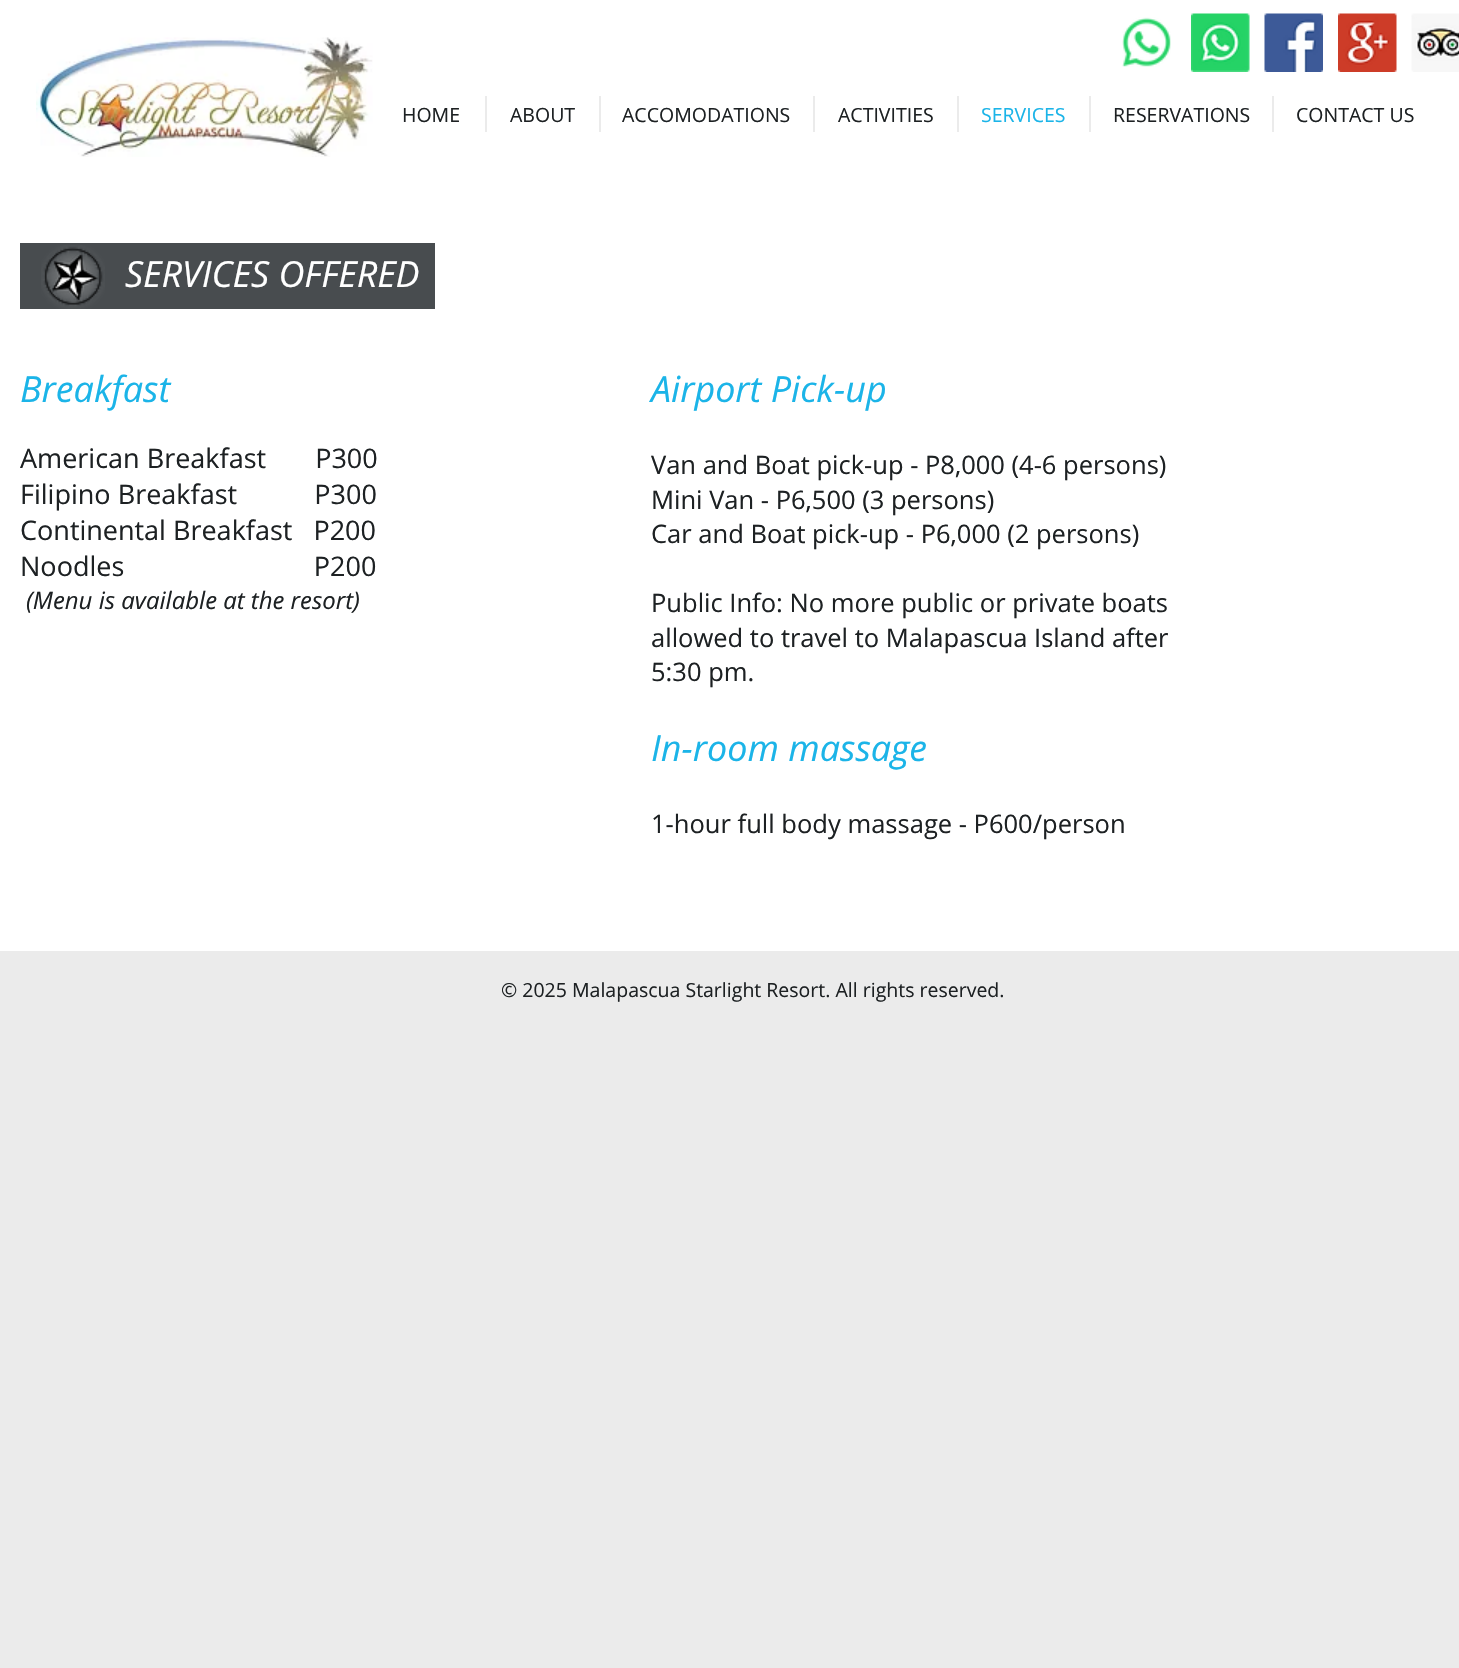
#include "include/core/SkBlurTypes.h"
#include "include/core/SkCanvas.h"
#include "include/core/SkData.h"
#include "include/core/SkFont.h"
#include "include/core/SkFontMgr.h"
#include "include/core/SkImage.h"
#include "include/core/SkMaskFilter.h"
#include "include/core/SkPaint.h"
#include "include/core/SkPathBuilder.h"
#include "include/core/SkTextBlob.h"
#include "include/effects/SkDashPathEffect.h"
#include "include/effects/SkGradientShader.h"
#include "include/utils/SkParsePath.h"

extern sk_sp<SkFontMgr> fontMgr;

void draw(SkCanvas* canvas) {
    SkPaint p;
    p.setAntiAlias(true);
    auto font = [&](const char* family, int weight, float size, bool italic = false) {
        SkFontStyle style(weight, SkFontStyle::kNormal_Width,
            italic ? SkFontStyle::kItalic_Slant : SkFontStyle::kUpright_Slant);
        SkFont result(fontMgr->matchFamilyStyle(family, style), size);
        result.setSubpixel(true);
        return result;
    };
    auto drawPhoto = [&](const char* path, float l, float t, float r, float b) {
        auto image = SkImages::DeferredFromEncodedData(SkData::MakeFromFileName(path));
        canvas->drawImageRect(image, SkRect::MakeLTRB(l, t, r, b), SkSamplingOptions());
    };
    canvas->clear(0xFFEBEBEB);
    p.setColor(0xFFFFFFFF);
    canvas->drawRect(SkRect::MakeLTRB(0, 0, 1459, 951), p);
    drawPhoto("media/1.png", 36, 37, 373, 157);
    drawPhoto("media/2.png", 1122, 17, 1171, 67);
    drawPhoto("media/3.png", 1191, 13, 1250, 72);
    drawPhoto("media/4.png", 1264, 13, 1323, 72);
    drawPhoto("media/5.png", 1338, 13, 1397, 72);
    drawPhoto("media/6.png", 1411, 13, 1459, 72);
    auto font1 = font("Open Sans", 400, 19.5f);
    p.setColor(0xFF1D2123);
    canvas->drawString("HOME", 402, 122, font1, p);
    p.setColor(0xFFEBEBEB);
    canvas->drawRect(SkRect::MakeLTRB(485, 96, 487, 132), p);
    p.setColor(0xFF1D2123);
    canvas->drawString("ABOUT", 510, 122, font1, p);
    p.setColor(0xFFEBEBEB);
    canvas->drawRect(SkRect::MakeLTRB(599, 96, 601, 132), p);
    p.setColor(0xFF1D2123);
    canvas->drawString("ACCOMODATIONS", 622, 122, font1, p);
    p.setColor(0xFFEBEBEB);
    canvas->drawRect(SkRect::MakeLTRB(813, 96, 815, 132), p);
    p.setColor(0xFF1D2123);
    canvas->drawString("ACTIVITIES", 838, 122, font1, p);
    p.setColor(0xFFEBEBEB);
    canvas->drawRect(SkRect::MakeLTRB(957, 96, 959, 132), p);
    p.setColor(0xFF1BB4E8);
    canvas->drawString("SERVICES", 981, 122, font1, p);
    p.setColor(0xFFEBEBEB);
    canvas->drawRect(SkRect::MakeLTRB(1089, 96, 1091, 132), p);
    p.setColor(0xFF1D2123);
    canvas->drawString("RESERVATIONS", 1113, 122, font1, p);
    p.setColor(0xFFEBEBEB);
    canvas->drawRect(SkRect::MakeLTRB(1272, 96, 1274, 132), p);
    p.setColor(0xFF1D2123);
    canvas->drawString("CONTACT US", 1296, 122, font1, p);
    p.setColor(0xFF484C4F);
    canvas->drawRect(SkRect::MakeLTRB(20, 243, 435, 309), p);
    drawPhoto("media/7.png", 41, 245, 105, 309);
    auto font2 = font("Open Sans", 400, 36, true);
    p.setColor(0xFFFFFFFF);
    canvas->drawString("SERVICES OFFERED", 125, 287, font2, p);
    p.setColor(0xFF1BB4E8);
    canvas->drawString("Breakfast", 20, 402, font2, p);
    auto font3 = font("Open Sans", 400, 27);
    p.setColor(0xFF1D2123);
    {
        const struct { const char* s; float x, y; } items[] = {
            {"American Breakfast       P300", 20, 468},
            {"Filipino Breakfast           P300", 20, 504},
            {"Continental Breakfast   P200", 20, 540},
            {"Noodles                           P200", 20, 576},
        };
        for (auto [s, x, y] : items) {
            canvas->drawString(s, x, y, font3, p);
        }
    }
    auto font4 = font("Open Sans", 400, 24, true);
    canvas->drawString("(Menu is available at the resort)", 26, 609, font4, p);
    p.setColor(0xFF1BB4E8);
    canvas->drawString("Airport Pick-up", 651, 402, font2, p);
    auto font5 = font("Open Sans", 400, 25.5f);
    p.setColor(0xFF1D2123);
    {
        const struct { const char* s; float x, y; } items[] = {
            {"Van and Boat pick-up - P8,000 (4-6 persons)", 651, 474},
            {"Mini Van - P6,500 (3 persons)", 651, 509},
            {"Car and Boat pick-up - P6,000 (2 persons)", 651, 543},
            {"Public Info: No more public or private boats", 651, 612},
            {"allowed to travel to Malapascua Island after", 651, 647},
            {"5:30 pm.", 651, 681},
        };
        for (auto [s, x, y] : items) {
            canvas->drawString(s, x, y, font5, p);
        }
    }
    p.setColor(0xFF1BB4E8);
    canvas->drawString("In-room massage", 651, 761, font2, p);
    p.setColor(0xFF1D2123);
    canvas->drawString("1-hour full body massage - P600/person", 651, 833, font5, p);
    canvas->drawString("© 2025 Malapascua Starlight Resort. All rights reserved.", 501, 997, font1, p);
}
